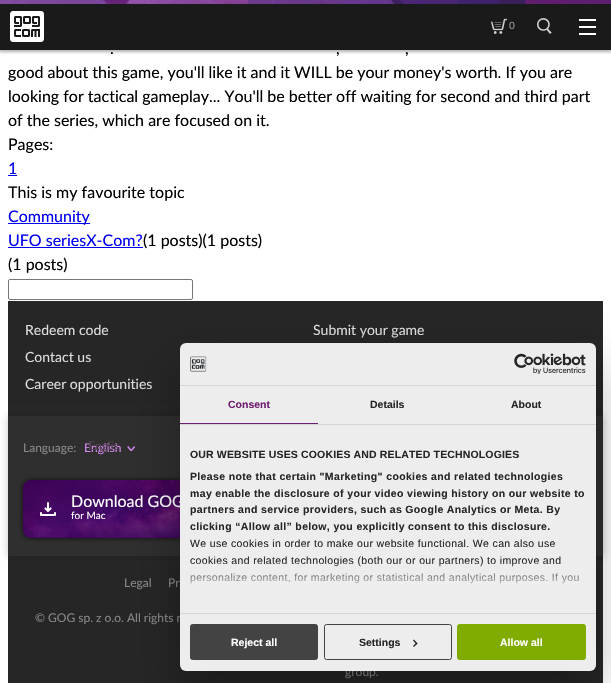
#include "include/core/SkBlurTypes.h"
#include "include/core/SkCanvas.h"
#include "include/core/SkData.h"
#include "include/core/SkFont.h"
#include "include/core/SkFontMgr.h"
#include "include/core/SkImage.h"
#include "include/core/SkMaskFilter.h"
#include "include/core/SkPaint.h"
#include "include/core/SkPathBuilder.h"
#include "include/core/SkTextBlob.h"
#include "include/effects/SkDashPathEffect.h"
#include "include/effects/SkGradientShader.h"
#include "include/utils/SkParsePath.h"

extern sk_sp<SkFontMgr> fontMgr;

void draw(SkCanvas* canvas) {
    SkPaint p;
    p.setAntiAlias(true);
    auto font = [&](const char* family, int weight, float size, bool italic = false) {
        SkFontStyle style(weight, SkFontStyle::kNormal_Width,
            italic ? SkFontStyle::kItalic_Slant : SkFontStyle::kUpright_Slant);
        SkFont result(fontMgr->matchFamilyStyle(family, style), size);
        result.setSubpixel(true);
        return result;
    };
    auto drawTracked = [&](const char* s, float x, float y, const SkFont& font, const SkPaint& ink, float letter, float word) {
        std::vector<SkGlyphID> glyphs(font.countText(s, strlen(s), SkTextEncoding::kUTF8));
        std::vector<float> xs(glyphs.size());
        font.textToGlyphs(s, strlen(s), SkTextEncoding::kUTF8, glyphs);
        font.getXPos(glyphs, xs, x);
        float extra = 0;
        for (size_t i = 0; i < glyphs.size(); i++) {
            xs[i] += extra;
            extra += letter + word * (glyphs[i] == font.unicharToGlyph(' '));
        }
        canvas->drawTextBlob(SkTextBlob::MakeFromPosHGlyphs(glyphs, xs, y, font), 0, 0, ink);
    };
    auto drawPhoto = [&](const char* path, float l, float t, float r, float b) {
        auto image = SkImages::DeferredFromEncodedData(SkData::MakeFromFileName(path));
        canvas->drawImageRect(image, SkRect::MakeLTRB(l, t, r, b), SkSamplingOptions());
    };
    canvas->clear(0xFFFFFFFF);
    p.setColor(0x4D000000);
    p.setMaskFilter(SkMaskFilter::MakeBlur(kNormal_SkBlurStyle, 1.5f));
    canvas->drawRect(SkRect::MakeLTRB(-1, 0, 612, 52), p);
    p.setMaskFilter(nullptr);
    p.setColor(0xFF1A1A1A);
    canvas->drawRect(SkRect::MakeLTRB(0, 4, 611, 50), p);
    drawPhoto("media/1.png", 0, 0, 611, 4);
    drawPhoto("media/2.png", 10, 11, 44, 42);
    drawPhoto("media/3.png", 491, 18, 507, 34);
    auto font1 = font("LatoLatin", 600, 10);
    p.setColor(0xFF888888);
    canvas->drawString("0", 509, 29, font1, p);
    drawPhoto("media/4.png", 537, 18, 552, 34);
    {
        const struct { float l, t, r, b; SkColor color; } items[] = {
            {579, 19, 596, 21, 0xFFFFFFFF},
            {579, 26, 596, 28, 0xFFFFFFFF},
            {579, 33, 596, 35, 0xFFFFFFFF},
        };
        for (auto [l, t, r, b, color] : items) {
            p.setColor(color);
            canvas->drawRect(SkRect::MakeLTRB(l, t, r, b), p);
        }
    }
    auto font2 = font("LatoLatin", 400, 16);
    p.setColor(0xFF000000);
    {
        const struct { const char* s; float x, y; } items[] = {
            {".", 110, 54},
            {",", 336, 54},
            {",", 405, 54},
            {"good about this game, you'll like it and it WILL be your money's worth. If you are", 8, 78},
            {"looking for tactical gameplay... You'll be better off waiting for second and third part", 8, 102},
            {"of the series, which are focused on it.", 8, 126},
            {"Pages:", 8, 150},
        };
        for (auto [s, x, y] : items) {
            canvas->drawString(s, x, y, font2, p);
        }
    }
    p.setColor(0xFF0000EE);
    canvas->drawString("1", 8, 174, font2, p);
    canvas->drawRect(SkRect::MakeLTRB(8, 175, 17, 176), p);
    p.setColor(0xFF000000);
    canvas->drawString("This is my favourite topic", 8, 198, font2, p);
    p.setColor(0xFF0000EE);
    canvas->drawRect(SkRect::MakeLTRB(8, 223, 90, 224), p);
    canvas->drawString("Community", 8, 222, font2, p);
    canvas->drawString("UFO seriesX-Com?", 8, 246, font2, p);
    canvas->drawRect(SkRect::MakeLTRB(8, 247, 143, 248), p);
    p.setColor(0xFF000000);
    canvas->drawString("(1 posts)(1 posts)", 143, 246, font2, p);
    canvas->drawString("(1 posts)", 8, 270, font2, p);
    p.setStyle(SkPaint::kStroke_Style);
    p.setStrokeWidth(1);
    p.setColor(0xFF767676);
    canvas->drawRoundRect(SkRect::MakeLTRB(8.5f, 279.5f, 192.5f, 299.5f), 1.5f, 1.5f, p);
    p.setStyle(SkPaint::kFill_Style);
    p.setColor(0xFF262626);
    canvas->drawRect(SkRect::MakeLTRB(8, 301, 603, 683), p);
    auto font3 = font("LatoLatin", 400, 14);
    p.setColor(0xFFDDDDDD);
    {
        const struct { const char* s; float x, y; } items[] = {
            {"Redeem code", 25, 335},
            {"Submit your game", 313, 335},
            {"Contact us", 25, 362},
            {"Career opportunities", 25, 389},
        };
        for (auto [s, x, y] : items) {
            canvas->drawString(s, x, y, font3, p);
        }
    }
    p.setColor(0x3D111111);
    p.setMaskFilter(SkMaskFilter::MakeBlur(kNormal_SkBlurStyle, 4));
    canvas->drawRect(SkRect::MakeLTRB(8, 416, 603, 556), p);
    p.setMaskFilter(nullptr);
    p.setColor(0xFF2F2F2F);
    canvas->drawRect(SkRect::MakeLTRB(8, 416, 603, 556), p);
    auto font4 = font("LatoLatin", 400, 12);
    p.setColor(0xFF888888);
    canvas->drawString("Language:", 23, 452, font4, p);
    p.setColor(0xFFDA8BF0);
    canvas->drawString("English", 84, 452, font4, p);
    p.setColor(0xFF544358);
    canvas->drawString("Englis", 88, 450, font4, p);
    drawPhoto("media/5.png", 127, 446, 135, 451);
    p.setColor(0xBA000000);
    p.setMaskFilter(SkMaskFilter::MakeBlur(kNormal_SkBlurStyle, 2.5f));
    canvas->drawRoundRect(SkRect::MakeLTRB(23, 480, 251, 538), 8, 8, p);
    p.setMaskFilter(nullptr);
    drawPhoto("media/6.png", 23, 480, 180, 538);
    drawPhoto("media/7.png", 40, 502, 56, 516);
    p.setColor(0xFFFFFFFF);
    canvas->drawString("Download GOG", 71, 507, font2, p);
    auto font5 = font("LatoLatin", 400, 10);
    canvas->drawString("for Mac", 71, 519, font5, p);
    p.setColor(0xFF888888);
    {
        const struct { const char* s; float x, y; } items[] = {
            {"Legal", 124, 587},
            {"Pr", 168, 587},
            {"© GOG sp. z o.o. All rights r", 35, 622},
            {"group.", 345, 676},
        };
        for (auto [s, x, y] : items) {
            canvas->drawString(s, x, y, font4, p);
        }
    }
    p.setColor(0x4D000000);
    p.setMaskFilter(SkMaskFilter::MakeBlur(kNormal_SkBlurStyle, 24));
    canvas->drawRoundRect(SkRect::MakeLTRB(180, 365, 596, 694), 6, 6, p);
    p.setMaskFilter(nullptr);
    p.setColor(0xFFEDEDED);
    canvas->drawRoundRect(SkRect::MakeLTRB(180, 343, 596, 671), 6, 6, p);
    p.setColor(0xFFD6D6D6);
    canvas->drawRect(SkRect::MakeLTRB(180, 385, 596, 386), p);
    drawPhoto("media/8.png", 190, 356, 207, 372);
    drawPhoto("media/9.png", 514, 353, 586, 374);
    canvas->drawRect(SkRect::MakeLTRB(180, 424, 596, 425), p);
    p.setColor(0xFF6E1D72);
    canvas->drawRect(SkRect::MakeLTRB(180, 423, 318, 424), p);
    auto font6 = font("Liberation Sans", 700, 10.5f);
    canvas->drawString("Consent", 228, 408, font6, p);
    p.setColor(0xFF262626);
    canvas->drawString("Details", 370, 408, font6, p);
    canvas->drawString("About", 511, 408, font6, p);
    p.setColor(0xFFD6D6D6);
    canvas->drawRect(SkRect::MakeLTRB(180, 613, 596, 614), p);
    p.setColor(0xFF262626);
    drawTracked("OUR WEBSITE USES COOKIES AND RELATED TECHNOLOGIES", 190, 458, font6, p, 0.15f, 0);
    {
        const struct { const char* s; float x, y; } items[] = {
            {"Please note that certain \"Marketing\" cookies and related technologies", 190, 480},
            {"may enable the disclosure of your video viewing history on our website to", 190, 497},
            {"partners and service providers, such as Google Analytics or Meta. By", 190, 513},
            {"clicking “Allow all” below, you explicitly consent to this disclosure.", 190, 530},
        };
        for (auto [s, x, y] : items) {
            drawTracked(s, x, y, font6, p, 0.35f, 0);
        }
    }
    auto font7 = font("Liberation Sans", 400, 10.5f);
    {
        const struct { const char* s; float x, y; } items[] = {
            {"We use cookies in order to make our website functional. We can also use", 190, 547},
            {"cookies and related technologies (both our or our partners) to improve and", 190, 564},
            {"personalize content, for marketing or statistical and analytical purposes. If you", 190, 581},
        };
        for (auto [s, x, y] : items) {
            drawTracked(s, x, y, font7, p, 0.35f, 0);
        }
    }
    {
        const SkColor colors[] = {0xFFEDEDED, 0xCCEDEDED, 0x00EDEDED};
        const float stops[] = {0, 0.5f, 1};
        const SkPoint ends[] = {{383, 613}, {383, 561}};
        p.setShader(SkGradientShader::MakeLinear(ends, colors, stops, 3, SkTileMode::kClamp));
        p.setAlpha(255);
    }
    canvas->drawRect(SkRect::MakeLTRB(190, 562, 579, 584), p);
    p.setShader(nullptr);
    p.setColor(0xFF434343);
    canvas->drawRoundRect(SkRect::MakeLTRB(190.5f, 624.5f, 317.5f, 659.5f), 2, 2, p);
    p.setStyle(SkPaint::kStroke_Style);
    canvas->drawRoundRect(SkRect::MakeLTRB(190.5f, 624.5f, 317.5f, 659.5f), 2, 2, p);
    p.setStyle(SkPaint::kFill_Style);
    p.setColor(0xFFFFFFFF);
    canvas->drawString("Reject all", 231, 646, font6, p);
    p.setStyle(SkPaint::kStroke_Style);
    p.setColor(0xFF434343);
    canvas->drawRoundRect(SkRect::MakeLTRB(324.5f, 624.5f, 451.5f, 659.5f), 2, 2, p);
    p.setStyle(SkPaint::kFill_Style);
    p.setColor(0xFF262626);
    canvas->drawString("Settings", 359, 646, font6, p);
    canvas->drawPath(SkPathBuilder().moveTo(414, 639.5f).lineTo(417.5f, 643.5f).lineTo(416.5f, 644.5f).lineTo(413, 640.5f).close().detach(), p);
    canvas->drawPath(SkPathBuilder().moveTo(416.5f, 642.5f).lineTo(417.5f, 643.5f).lineTo(414, 647).lineTo(413, 646).close().detach(), p);
    p.setColor(0xFF80AB00);
    canvas->drawRoundRect(SkRect::MakeLTRB(457.5f, 624.5f, 585.5f, 659.5f), 2, 2, p);
    p.setStyle(SkPaint::kStroke_Style);
    canvas->drawRoundRect(SkRect::MakeLTRB(457.5f, 624.5f, 585.5f, 659.5f), 2, 2, p);
    p.setStyle(SkPaint::kFill_Style);
    p.setColor(0xFFFFFFFF);
    canvas->drawString("Allow all", 500, 646, font6, p);
}
